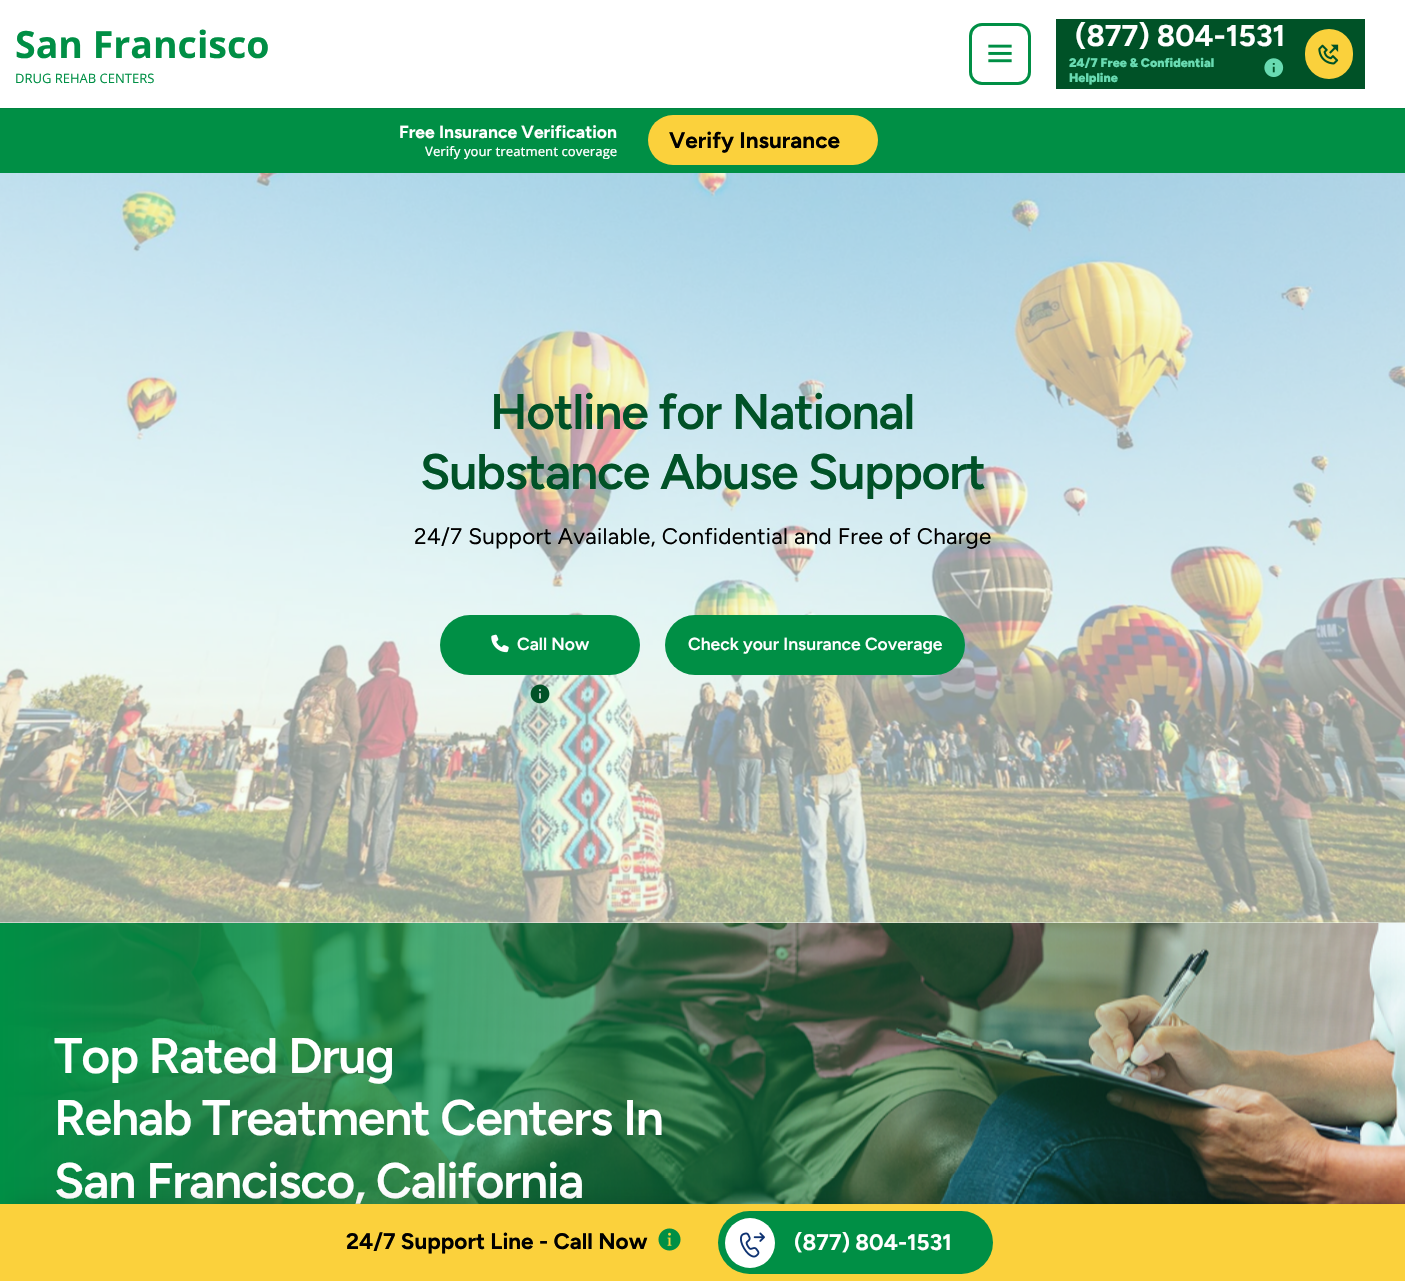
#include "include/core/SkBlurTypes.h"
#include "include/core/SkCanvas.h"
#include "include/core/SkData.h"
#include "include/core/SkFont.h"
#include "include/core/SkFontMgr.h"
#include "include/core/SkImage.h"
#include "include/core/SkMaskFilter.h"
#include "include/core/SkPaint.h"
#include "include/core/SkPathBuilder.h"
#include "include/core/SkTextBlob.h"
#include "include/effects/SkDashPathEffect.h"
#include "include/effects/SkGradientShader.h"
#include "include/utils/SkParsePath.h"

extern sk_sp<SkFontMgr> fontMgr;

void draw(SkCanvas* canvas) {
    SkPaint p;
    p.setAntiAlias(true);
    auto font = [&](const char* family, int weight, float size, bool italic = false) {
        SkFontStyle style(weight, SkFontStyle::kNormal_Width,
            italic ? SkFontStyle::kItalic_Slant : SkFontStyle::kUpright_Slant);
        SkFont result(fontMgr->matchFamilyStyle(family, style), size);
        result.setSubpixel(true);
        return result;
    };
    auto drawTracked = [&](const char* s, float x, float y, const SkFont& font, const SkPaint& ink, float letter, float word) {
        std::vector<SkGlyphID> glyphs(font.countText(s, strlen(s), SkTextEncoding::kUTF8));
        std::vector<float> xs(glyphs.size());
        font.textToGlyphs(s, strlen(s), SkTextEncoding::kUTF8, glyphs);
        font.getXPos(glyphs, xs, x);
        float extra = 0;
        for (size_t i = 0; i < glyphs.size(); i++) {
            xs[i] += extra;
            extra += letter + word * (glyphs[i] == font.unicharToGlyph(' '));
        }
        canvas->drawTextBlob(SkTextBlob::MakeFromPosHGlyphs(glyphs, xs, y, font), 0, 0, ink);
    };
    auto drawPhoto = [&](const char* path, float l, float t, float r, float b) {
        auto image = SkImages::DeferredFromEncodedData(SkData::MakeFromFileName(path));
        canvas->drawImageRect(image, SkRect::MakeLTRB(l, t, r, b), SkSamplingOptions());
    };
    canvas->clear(0xFFF6FFFA);
    p.setColor(0xFF008F45);
    canvas->drawRect(SkRect::MakeLTRB(0, 108, 1405, 173), p);
    p.setColor(0x14000000);
    p.setMaskFilter(SkMaskFilter::MakeBlur(kNormal_SkBlurStyle, 0.5f));
    canvas->drawRect(SkRect::MakeLTRB(0, 1, 1405, 109), p);
    p.setMaskFilter(nullptr);
    p.setColor(0xFFFFFFFF);
    canvas->drawRect(SkRect::MakeLTRB(0, 0, 1405, 108), p);
    auto font1 = font("Open Sans", 700, 37.5f);
    p.setColor(0xFF008F45);
    canvas->drawString("San Francisco", 15, 58, font1, p);
    auto font2 = font("Open Sans", 400, 13);
    canvas->drawString("DRUG REHAB CENTERS", 15, 83, font2, p);
    p.setStyle(SkPaint::kStroke_Style);
    p.setStrokeWidth(3);
    canvas->drawRoundRect(SkRect::MakeLTRB(970.5f, 24.5f, 1029.5f, 83.5f), 11.5f, 11.5f, p);
    drawPhoto("media/1.png", 988, 44, 1012, 63);
    p.setStyle(SkPaint::kFill_Style);
    p.setColor(0xFF005227);
    canvas->drawRect(SkRect::MakeLTRB(1056, 19, 1365, 89), p);
    auto font3 = font("Figtree", 700, 30);
    p.setColor(0xFFFFFFFF);
    canvas->drawString("(877) 804-1531", 1075, 46, font3, p);
    auto font4 = font("Figtree", 900, 12.5f);
    p.setColor(0xFF69DBB2);
    canvas->drawString("24/7 Free & Confidential", 1069, 67, font4, p);
    drawPhoto("media/2.png", 1264, 58, 1284, 77);
    canvas->drawString("Helpline", 1069, 82, font4, p);
    p.setColor(0xFFFAD13C);
    canvas->drawRoundRect(SkRect::MakeLTRB(1305, 29, 1353, 79), 24, 24, p);
    drawPhoto("media/3.png", 1318, 44, 1339, 65);
    auto font5 = font("Figtree", 700, 17.5f);
    p.setColor(0xFFFFFFFF);
    canvas->drawString("Free Insurance Verification", 399, 138, font5, p);
    auto font6 = font("Open Sans", 500, 13);
    canvas->drawString("Verify your treatment coverage", 425, 156, font6, p);
    p.setColor(0xFFFBD13C);
    canvas->drawRoundRect(SkRect::MakeLTRB(648, 115, 878, 165), 25, 25, p);
    auto font7 = font("Figtree", 700, 22.5f);
    p.setColor(0xFF000000);
    canvas->drawString("Verify Insurance", 669, 148, font7, p);
    drawPhoto("media/4.png", 0, 173, 1405, 923);
    auto font8 = font("Figtree", 600, 50);
    p.setColor(0xFF005227);
    drawTracked("Hotline for National", 490, 429, font8, p, -1.25f, 0);
    drawTracked("Substance Abuse Support", 420, 489, font8, p, -1.25f, 0);
    auto font9 = font("Figtree", 400, 22.5f);
    p.setColor(0xFF000000);
    drawTracked("24/7 Support Available, Confidential and Free of Charge", 414, 544, font9, p, 0.25f, 0);
    p.setColor(0xFF008F45);
    canvas->drawRoundRect(SkRect::MakeLTRB(440, 615, 640, 675), 30, 30, p);
    drawPhoto("media/5.png", 491, 634, 509, 653);
    auto font10 = font("Figtree", 600, 17.5f);
    p.setColor(0xFFFFFFFF);
    canvas->drawString("Call Now", 517, 650, font10, p);
    drawPhoto("media/6.png", 530, 684, 550, 704);
    p.setColor(0xFF008F45);
    canvas->drawRoundRect(SkRect::MakeLTRB(665, 615, 965, 675), 30, 30, p);
    p.setColor(0xFFFFFFFF);
    canvas->drawString("Check your Insurance Coverage", 688, 650, font10, p);
    drawPhoto("media/7.png", 0, 923, 1405, 1204);
    {
        const struct { const char* s; float x, y; } items[] = {
            {"Top Rated Drug", 54, 1073},
            {"Rehab Treatment Centers In", 54, 1135},
            {"San Francisco, California", 54, 1198},
        };
        for (auto [s, x, y] : items) {
            drawTracked(s, x, y, font8, p, -1.25f, 0);
        }
    }
    p.setColor(0x1A000000);
    p.setMaskFilter(SkMaskFilter::MakeBlur(kNormal_SkBlurStyle, 8));
    canvas->drawRect(SkRect::MakeLTRB(11, 1201, 1394, 1256), p);
    p.setMaskFilter(nullptr);
    p.setColor(0xFFFBD13C);
    canvas->drawRect(SkRect::MakeLTRB(0, 1204, 1405, 1281), p);
    p.setColor(0xFF000000);
    canvas->drawString("24/7 Support Line - Call Now", 346, 1249, font7, p);
    drawPhoto("media/8.png", 658, 1228, 681, 1251);
    p.setColor(0xFF008F45);
    canvas->drawRoundRect(SkRect::MakeLTRB(718, 1211, 993, 1274), 31.5f, 31.5f, p);
    p.setColor(0xFFFFFFFF);
    canvas->drawCircle(750, 1243, 25, p);
    drawPhoto("media/9.png", 740, 1232, 765, 1258);
    canvas->drawString("(877) 804-1531", 794, 1250, font7, p);
}
